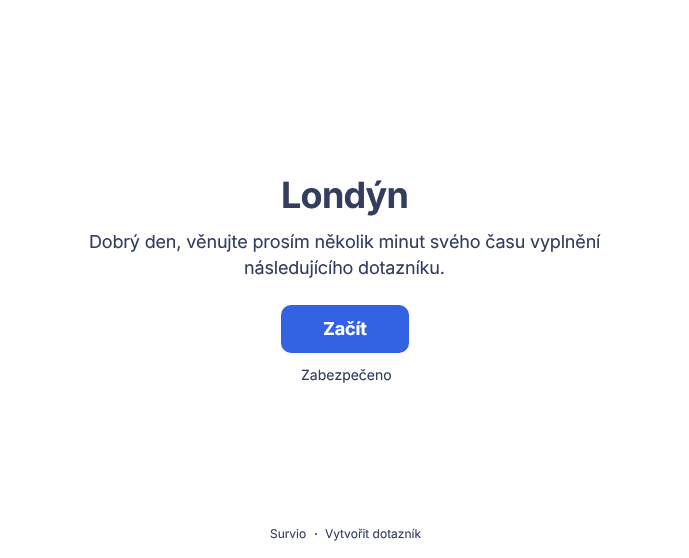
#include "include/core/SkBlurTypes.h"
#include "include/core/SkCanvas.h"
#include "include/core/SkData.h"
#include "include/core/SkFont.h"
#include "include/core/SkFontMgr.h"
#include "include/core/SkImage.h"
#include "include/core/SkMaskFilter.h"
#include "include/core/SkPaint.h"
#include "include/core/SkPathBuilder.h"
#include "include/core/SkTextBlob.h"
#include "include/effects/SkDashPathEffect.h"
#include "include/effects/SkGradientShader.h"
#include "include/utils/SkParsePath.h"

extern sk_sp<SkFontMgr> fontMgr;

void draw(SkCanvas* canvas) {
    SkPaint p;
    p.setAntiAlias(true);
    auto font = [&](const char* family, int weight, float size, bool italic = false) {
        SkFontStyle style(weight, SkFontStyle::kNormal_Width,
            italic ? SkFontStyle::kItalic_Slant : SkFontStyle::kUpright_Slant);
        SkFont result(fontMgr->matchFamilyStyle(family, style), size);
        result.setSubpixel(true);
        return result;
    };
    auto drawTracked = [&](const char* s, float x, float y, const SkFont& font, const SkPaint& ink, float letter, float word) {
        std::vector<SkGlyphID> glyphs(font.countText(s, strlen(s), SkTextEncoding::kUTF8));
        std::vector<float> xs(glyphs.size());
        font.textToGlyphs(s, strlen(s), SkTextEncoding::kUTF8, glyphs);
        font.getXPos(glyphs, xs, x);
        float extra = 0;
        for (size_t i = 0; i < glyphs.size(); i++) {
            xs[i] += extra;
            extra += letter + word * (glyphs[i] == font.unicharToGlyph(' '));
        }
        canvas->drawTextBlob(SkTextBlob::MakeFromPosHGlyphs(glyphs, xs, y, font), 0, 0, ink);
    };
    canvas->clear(0xFFFFFFFF);
    auto font1 = font("Inter", 700, 36);
    p.setColor(0xFF333D60);
    drawTracked("Londýn", 281, 208, font1, p, -0.75f, 0);
    auto font2 = font("Inter", 400, 18);
    drawTracked("Dobrý den, věnujte prosím několik minut svého času vyplnění", 89, 248, font2, p, -0.18f, 0);
    drawTracked("následujícího dotazníku.", 244, 274, font2, p, -0.18f, 0);
    p.setColor(0xFF3363E2);
    canvas->drawRoundRect(SkRect::MakeLTRB(281, 305, 409, 353), 10, 10, p);
    auto font3 = font("Inter", 700, 18);
    p.setColor(0xFFFFFFFF);
    drawTracked("Začít", 323, 335, font3, p, -0.18f, 0);
    auto font4 = font("Inter", 400, 14);
    p.setColor(0xFF333D60);
    canvas->drawString("Zabezpečeno", 301, 380, font4, p);
    auto font5 = font("Inter", 400, 12);
    canvas->drawString("Survio", 270, 538, font5, p);
    canvas->drawCircle(316, 534, 1, p);
    canvas->drawString("Vytvořit dotazník", 325, 538, font5, p);
}
